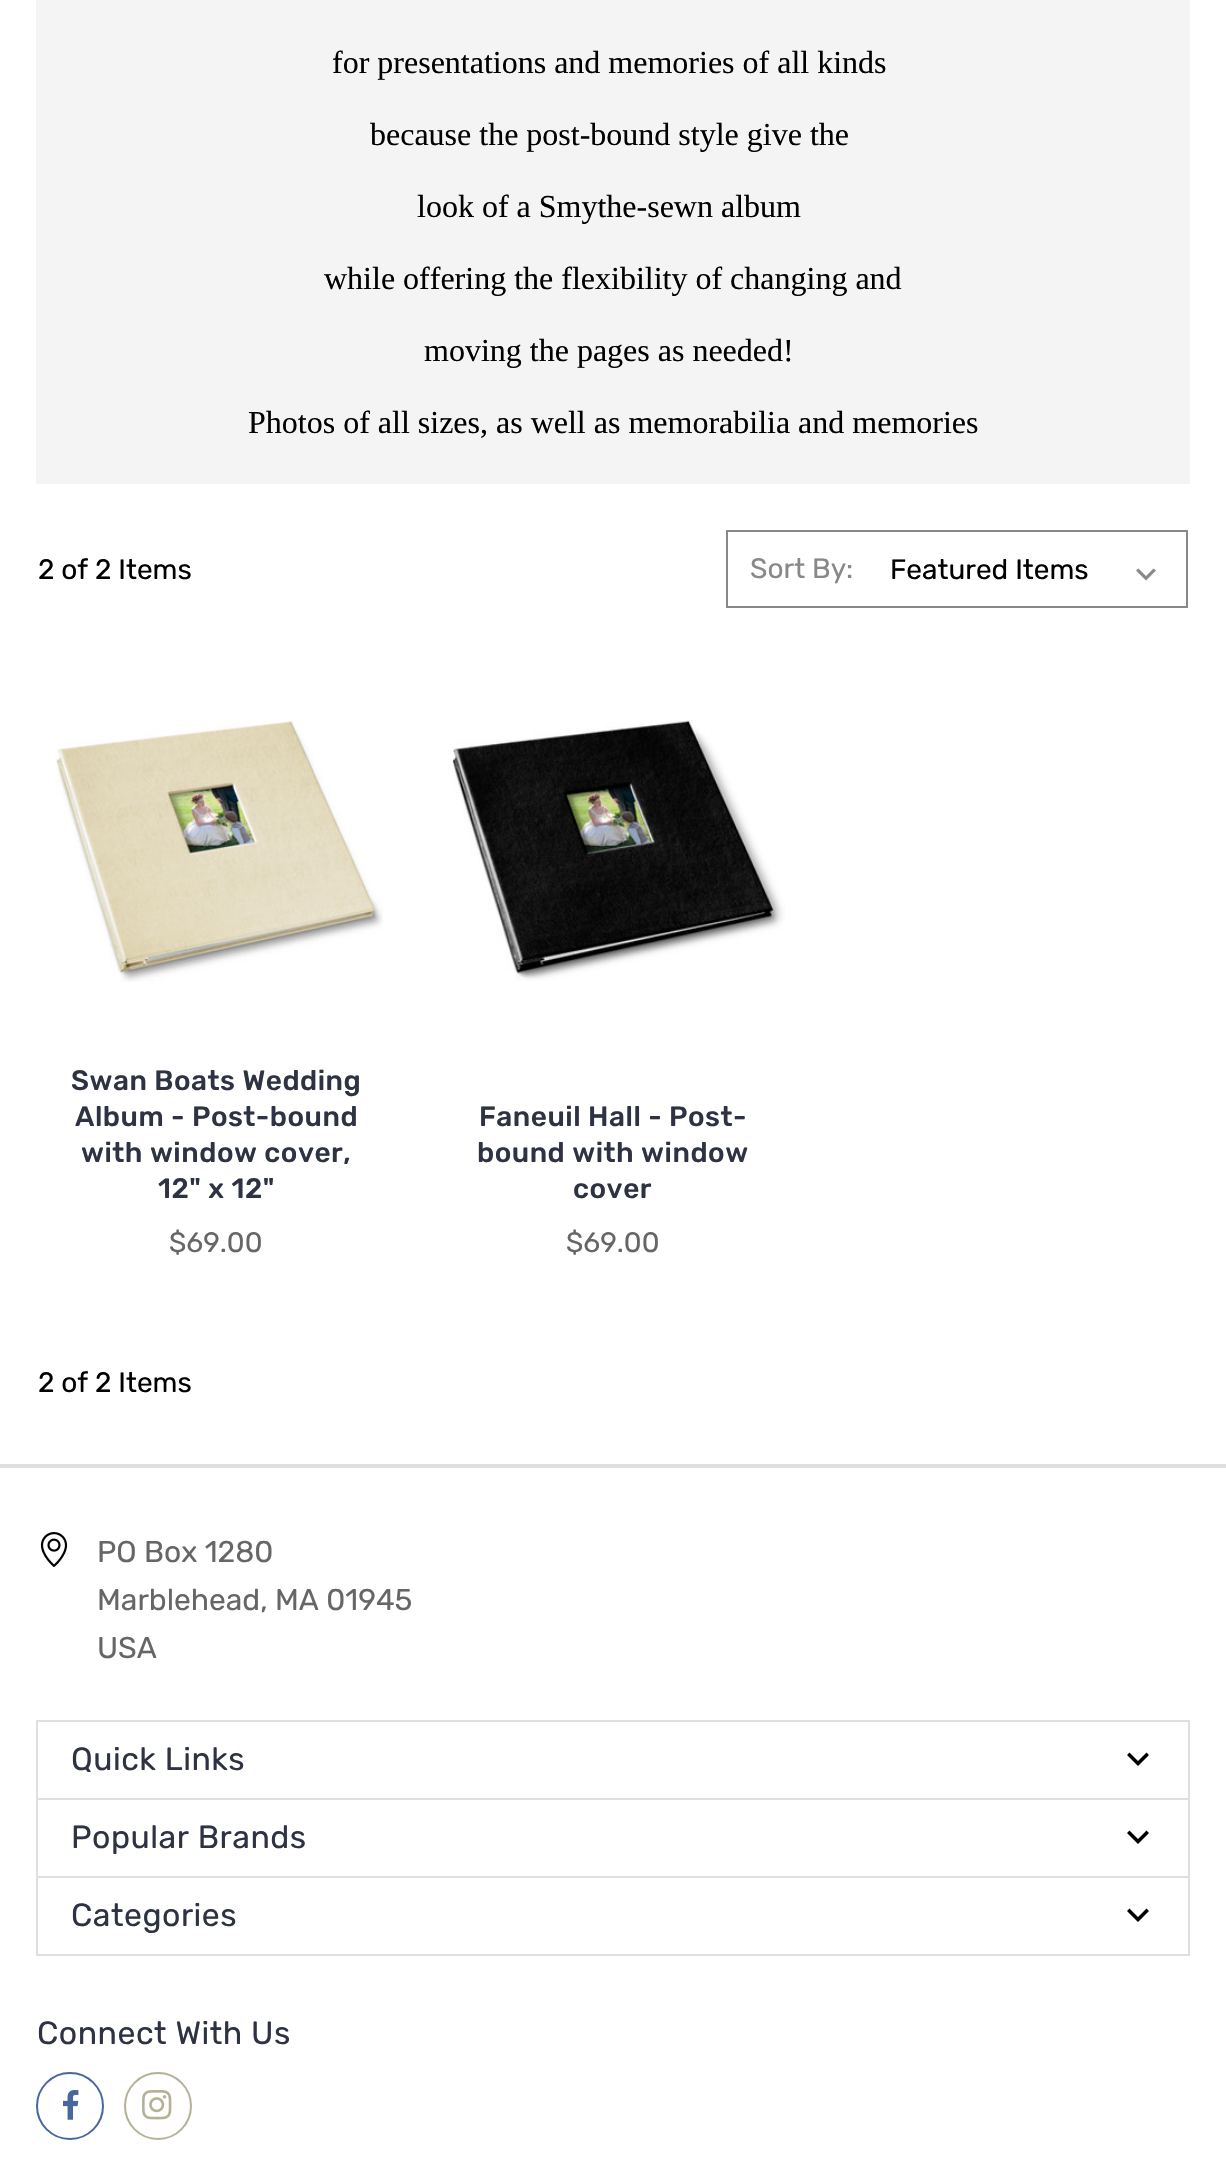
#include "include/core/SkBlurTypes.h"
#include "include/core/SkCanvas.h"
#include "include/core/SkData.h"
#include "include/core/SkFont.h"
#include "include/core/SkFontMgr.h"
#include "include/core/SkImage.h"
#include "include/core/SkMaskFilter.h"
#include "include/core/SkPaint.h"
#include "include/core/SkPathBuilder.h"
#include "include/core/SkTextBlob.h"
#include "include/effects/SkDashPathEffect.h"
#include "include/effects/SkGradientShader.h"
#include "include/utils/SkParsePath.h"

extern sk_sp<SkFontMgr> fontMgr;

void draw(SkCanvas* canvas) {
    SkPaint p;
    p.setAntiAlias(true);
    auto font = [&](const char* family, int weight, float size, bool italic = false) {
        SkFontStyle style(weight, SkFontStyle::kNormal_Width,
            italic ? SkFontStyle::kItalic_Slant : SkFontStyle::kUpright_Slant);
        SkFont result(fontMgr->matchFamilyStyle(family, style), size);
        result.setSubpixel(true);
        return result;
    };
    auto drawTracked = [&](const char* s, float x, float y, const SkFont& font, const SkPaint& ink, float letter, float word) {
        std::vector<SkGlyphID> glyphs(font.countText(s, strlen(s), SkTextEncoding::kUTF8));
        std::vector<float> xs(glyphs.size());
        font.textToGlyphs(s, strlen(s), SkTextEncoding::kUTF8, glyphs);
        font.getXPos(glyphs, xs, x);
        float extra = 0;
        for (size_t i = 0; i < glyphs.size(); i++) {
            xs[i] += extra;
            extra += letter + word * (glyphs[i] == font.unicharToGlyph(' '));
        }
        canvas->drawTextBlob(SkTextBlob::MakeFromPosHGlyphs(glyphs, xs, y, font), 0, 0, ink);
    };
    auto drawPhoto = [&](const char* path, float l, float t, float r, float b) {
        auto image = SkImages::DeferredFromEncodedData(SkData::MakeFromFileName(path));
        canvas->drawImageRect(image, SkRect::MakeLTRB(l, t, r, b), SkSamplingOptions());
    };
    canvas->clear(0xFFFFFFFF);
    p.setColor(0xFFF4F4F4);
    canvas->drawRect(SkRect::MakeLTRB(36, 0, 1190, 484), p);
    auto font1 = font("Liberation Serif", 400, 32);
    p.setColor(0xFF000000);
    {
        const struct { const char* s; float x, y; } items[] = {
            {"for presentations and memories of all kinds", 332, 73},
            {"because the post-bound style give the", 370, 145},
            {"look of a Smythe-sewn album", 417, 217},
            {"while offering the flexibility of changing and", 324, 289},
            {"moving the pages as needed!", 424, 361},
            {"Photos of all sizes, as well as memorabilia and memories", 248, 433},
        };
        for (auto [s, x, y] : items) {
            canvas->drawString(s, x, y, font1, p);
        }
    }
    auto font2 = font("Rubik", 400, 28);
    canvas->drawString("2 of 2 Items", 38, 579, font2, p);
    p.setStyle(SkPaint::kStroke_Style);
    p.setStrokeWidth(2);
    p.setColor(0xFF888888);
    canvas->drawRect(SkRect::MakeLTRB(727, 531, 1187, 607), p);
    p.setStyle(SkPaint::kFill_Style);
    canvas->drawString("Sort By:", 750, 578, font2, p);
    canvas->drawPath(SkPathBuilder().moveTo(1153.5f, 568.5f).lineTo(1146, 576).lineTo(1138.5f, 568.5f).lineTo(1136, 570.5f).lineTo(1146, 580.5f).lineTo(1156, 570.5f).close().detach(), p);
    p.setColor(0xFF000000);
    canvas->drawString("Featured Items", 890, 579, font2, p);
    drawPhoto("media/1.png", 56, 721, 383, 982);
    auto font3 = font("Rubik", 500, 28);
    p.setColor(0xFF2E3344);
    {
        const struct { const char* s; float x, y; } items[] = {
            {"Swan Boats Wedding", 71, 1090},
            {"Album - Post-bound", 75, 1126},
            {"with window cover,", 81, 1162},
            {"12\" x 12\"", 158, 1198},
        };
        for (auto [s, x, y] : items) {
            drawTracked(s, x, y, font3, p, 0.5f, 0);
        }
    }
    p.setColor(0xFF666666);
    canvas->drawString("$69.00", 169, 1252, font2, p);
    drawPhoto("media/2.png", 452, 720, 785, 981);
    p.setColor(0xFF2E3344);
    {
        const struct { const char* s; float x, y; } items[] = {
            {"Faneuil Hall - Post-", 479, 1126},
            {"bound with window", 477, 1162},
            {"cover", 573, 1198},
        };
        for (auto [s, x, y] : items) {
            drawTracked(s, x, y, font3, p, 0.5f, 0);
        }
    }
    p.setColor(0xFF666666);
    canvas->drawString("$69.00", 566, 1252, font2, p);
    p.setColor(0xFF000000);
    canvas->drawString("2 of 2 Items", 38, 1392, font2, p);
    p.setColor(0xFFDFDFDF);
    canvas->drawRect(SkRect::MakeLTRB(0, 1464, 1226, 1468), p);
    drawPhoto("media/3.png", 40, 1532, 68, 1567);
    auto font4 = font("Rubik", 400, 30);
    p.setColor(0xFF666666);
    {
        const struct { const char* s; float x, y; } items[] = {
            {"PO Box 1280", 97, 1562},
            {"Marblehead, MA 01945", 97, 1610},
            {"USA", 97, 1658},
        };
        for (auto [s, x, y] : items) {
            canvas->drawString(s, x, y, font4, p);
        }
    }
    p.setStyle(SkPaint::kStroke_Style);
    p.setColor(0xFFDFDFDF);
    canvas->drawRect(SkRect::MakeLTRB(37, 1721, 1189, 1799), p);
    auto font5 = font("Rubik", 400, 32);
    p.setStyle(SkPaint::kFill_Style);
    p.setColor(0xFF2E3344);
    drawTracked("Quick Links", 71, 1770, font5, p, 0.5f, 0);
    p.setColor(0xFF000000);
    canvas->drawPath(SkPathBuilder().moveTo(1129.5f, 1752.5f).lineTo(1138, 1761).lineTo(1146.5f, 1752.5f).lineTo(1149, 1755).lineTo(1138, 1766).lineTo(1127, 1755).close().detach(), p);
    p.setStyle(SkPaint::kStroke_Style);
    p.setColor(0xFFDFDFDF);
    canvas->drawRect(SkRect::MakeLTRB(37, 1799, 1189, 1877), p);
    p.setStyle(SkPaint::kFill_Style);
    p.setColor(0xFF2E3344);
    drawTracked("Popular Brands", 71, 1848, font5, p, 0.5f, 0);
    p.setColor(0xFF000000);
    canvas->drawPath(SkPathBuilder().moveTo(1129.5f, 1830.5f).lineTo(1138, 1839).lineTo(1146.5f, 1830.5f).lineTo(1149, 1833).lineTo(1138, 1844).lineTo(1127, 1833).close().detach(), p);
    p.setStyle(SkPaint::kStroke_Style);
    p.setColor(0xFFDFDFDF);
    canvas->drawRect(SkRect::MakeLTRB(37, 1877, 1189, 1955), p);
    p.setStyle(SkPaint::kFill_Style);
    p.setColor(0xFF2E3344);
    drawTracked("Categories", 71, 1926, font5, p, 0.5f, 0);
    p.setColor(0xFF000000);
    canvas->drawPath(SkPathBuilder().moveTo(1129.5f, 1908.5f).lineTo(1138, 1917).lineTo(1146.5f, 1908.5f).lineTo(1149, 1911).lineTo(1138, 1922).lineTo(1127, 1911).close().detach(), p);
    p.setColor(0xFF2E3344);
    drawTracked("Connect With Us", 37, 2044, font5, p, 0.5f, 0);
    p.setStyle(SkPaint::kStroke_Style);
    p.setColor(0xFF49669D);
    canvas->drawCircle(70, 2106, 33, p);
    drawPhoto("media/4.png", 63, 2090, 79, 2120);
    p.setColor(0xFFB5B196);
    canvas->drawCircle(158, 2106, 33, p);
    drawPhoto("media/5.png", 142, 2090, 172, 2120);
}
